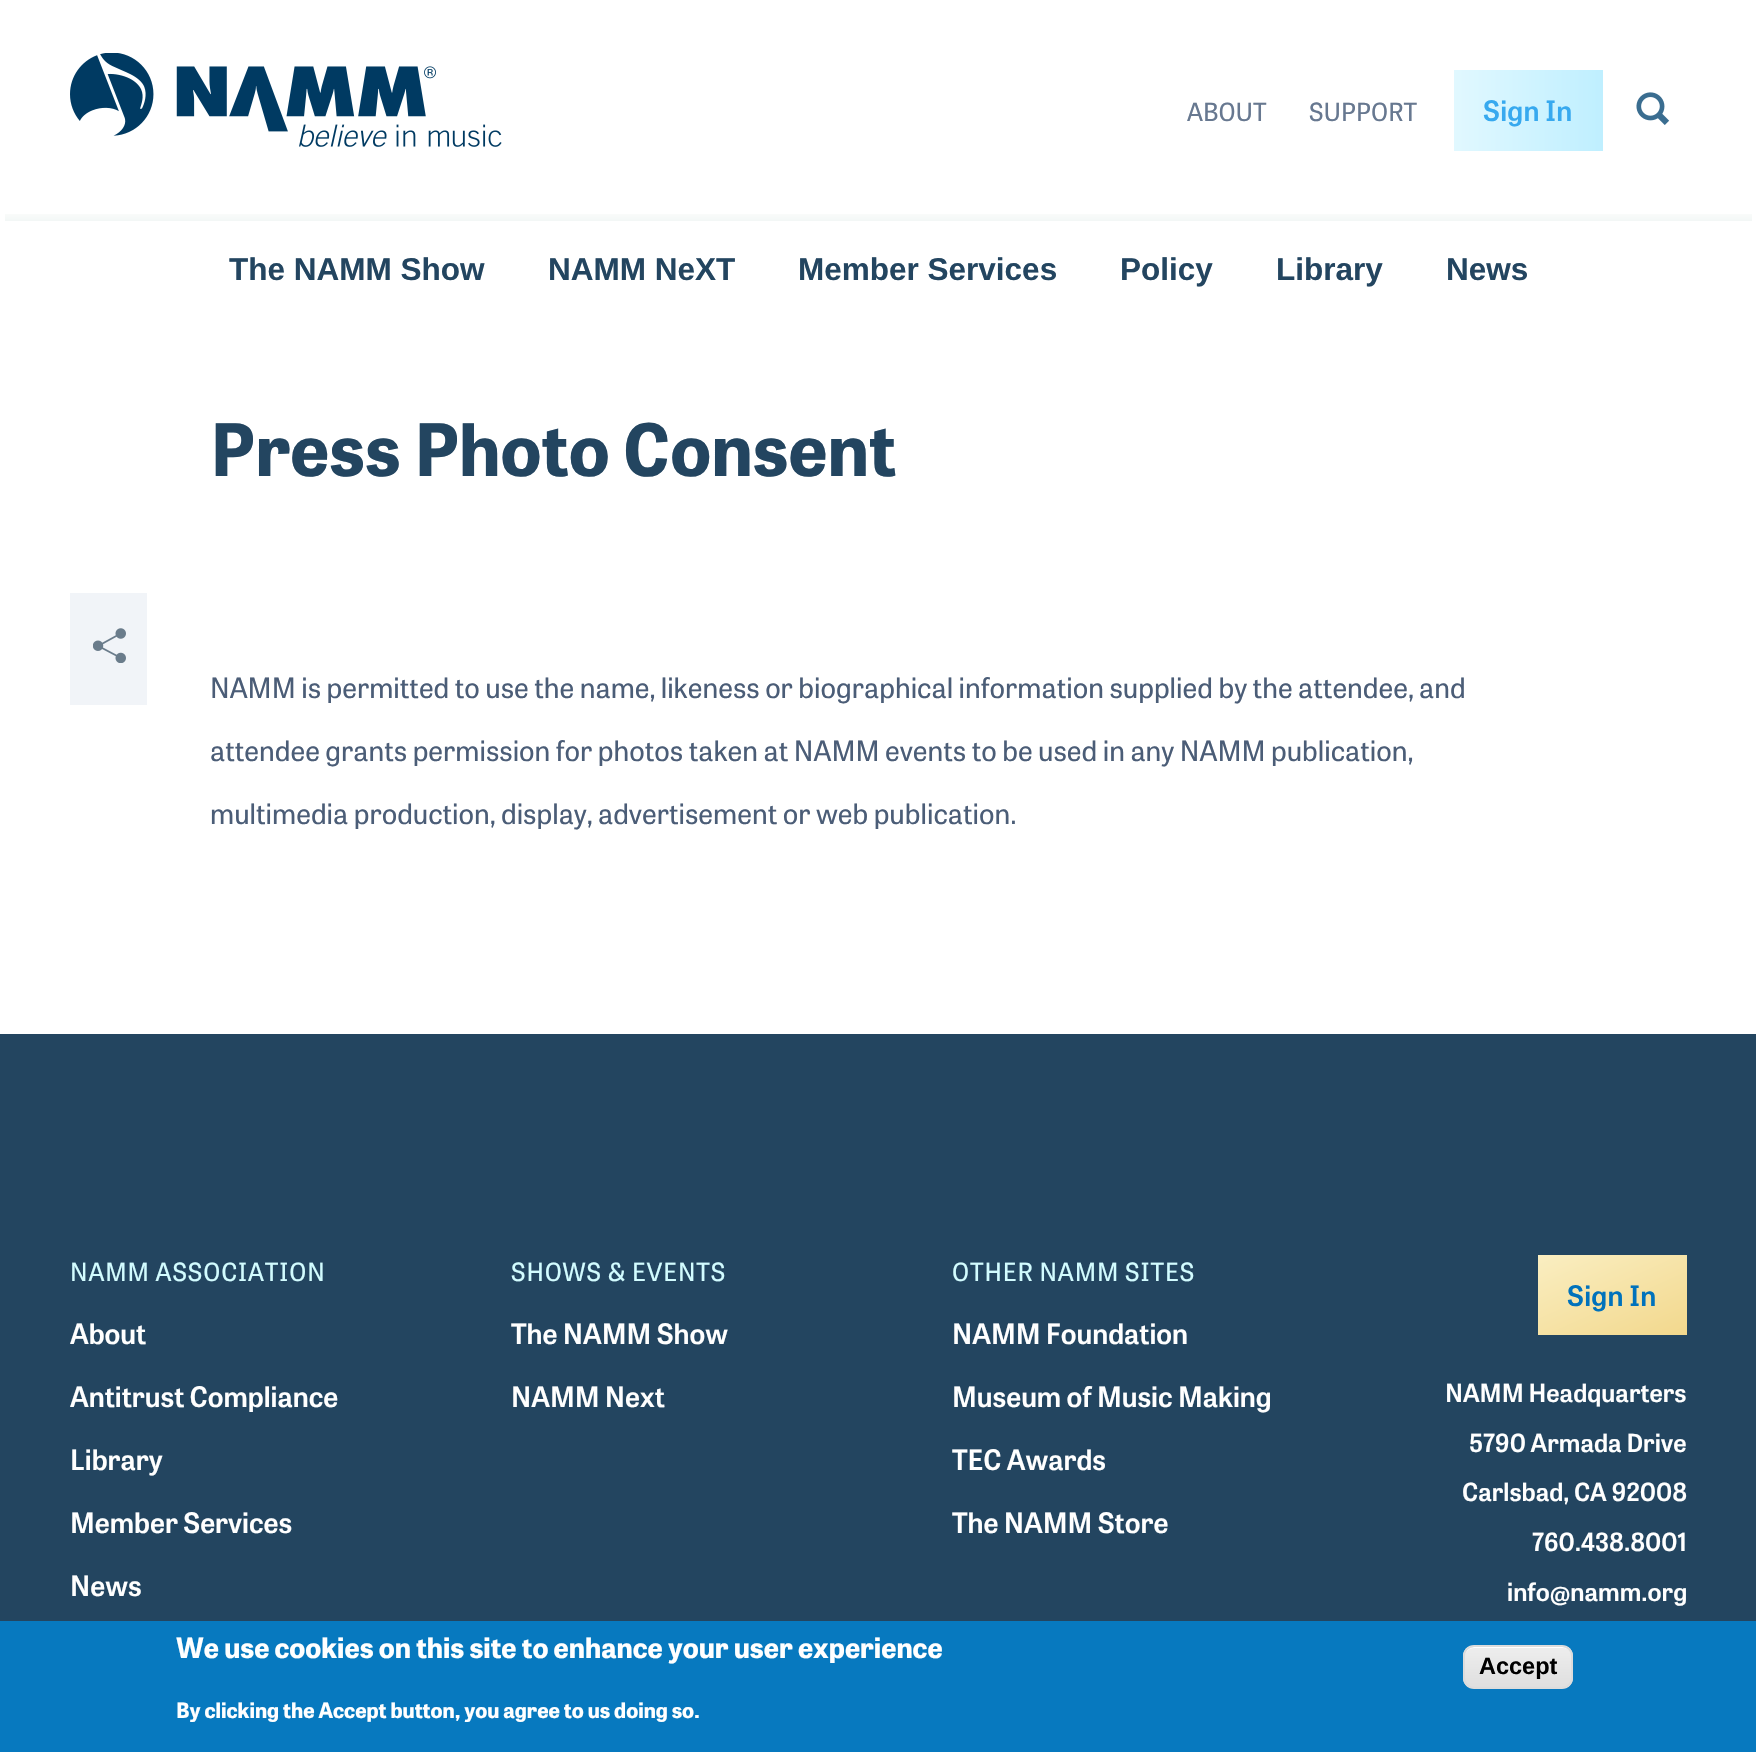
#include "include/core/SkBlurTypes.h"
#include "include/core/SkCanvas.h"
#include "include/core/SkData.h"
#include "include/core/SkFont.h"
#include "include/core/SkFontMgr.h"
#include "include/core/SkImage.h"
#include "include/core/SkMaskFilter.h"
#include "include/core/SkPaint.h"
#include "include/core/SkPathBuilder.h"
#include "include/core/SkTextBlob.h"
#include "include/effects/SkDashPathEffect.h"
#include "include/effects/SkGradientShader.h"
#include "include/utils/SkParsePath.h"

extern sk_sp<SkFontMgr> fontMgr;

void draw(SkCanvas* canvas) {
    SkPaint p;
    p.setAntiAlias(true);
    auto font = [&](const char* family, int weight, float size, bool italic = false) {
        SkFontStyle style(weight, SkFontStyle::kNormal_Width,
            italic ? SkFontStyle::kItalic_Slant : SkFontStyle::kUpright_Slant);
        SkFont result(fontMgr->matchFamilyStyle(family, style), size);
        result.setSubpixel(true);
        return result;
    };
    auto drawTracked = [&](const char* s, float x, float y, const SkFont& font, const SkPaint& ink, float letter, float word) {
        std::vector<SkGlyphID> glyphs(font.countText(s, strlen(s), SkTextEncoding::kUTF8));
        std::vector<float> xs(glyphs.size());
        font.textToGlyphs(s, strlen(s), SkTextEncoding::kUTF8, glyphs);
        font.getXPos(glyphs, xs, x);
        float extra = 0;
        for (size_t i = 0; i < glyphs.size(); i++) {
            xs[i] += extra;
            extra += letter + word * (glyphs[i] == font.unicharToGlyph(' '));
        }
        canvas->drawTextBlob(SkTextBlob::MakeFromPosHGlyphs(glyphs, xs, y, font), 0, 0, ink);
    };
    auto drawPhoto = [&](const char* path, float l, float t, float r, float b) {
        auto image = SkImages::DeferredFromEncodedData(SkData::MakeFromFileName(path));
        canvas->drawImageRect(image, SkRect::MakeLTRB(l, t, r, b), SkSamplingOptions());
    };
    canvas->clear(0xFFFFFFFF);
    drawPhoto("media/1.png", 70, 53, 502, 147);
    auto font1 = font("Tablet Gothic", 400, 24.9f);
    p.setColor(0xFF677890);
    canvas->drawString("ABOUT", 1187, 121, font1, p);
    canvas->drawString("SUPPORT", 1309, 121, font1, p);
    {
        const SkColor colors[] = {0xFFE1F8FF, 0xFFBFEFFF};
        const float stops[] = {0, 1};
        const SkPoint ends[] = {{1454, 110}, {1603, 110}};
        p.setShader(SkGradientShader::MakeLinear(ends, colors, stops, 2, SkTileMode::kClamp));
        p.setAlpha(255);
    }
    canvas->drawRect(SkRect::MakeLTRB(1454, 70, 1603, 151), p);
    auto font2 = font("Tablet Gothic", 600, 28);
    p.setShader(nullptr);
    p.setColor(0xFF37A9EF);
    drawTracked("Sign In", 1483, 121, font2, p, 0.25f, 0);
    drawPhoto("media/2.png", 1636, 92, 1670, 125);
    {
        const SkColor colors[] = {0xFFFAFCFB, 0xFFF2F7F6};
        const float stops[] = {0, 1};
        const SkPoint ends[] = {{879, 213}, {879, 221}};
        p.setShader(SkGradientShader::MakeLinear(ends, colors, stops, 2, SkTileMode::kClamp));
        p.setAlpha(255);
    }
    canvas->drawRect(SkRect::MakeLTRB(5, 214, 1752, 221), p);
    auto font3 = font("Liberation Sans", 700, 31.5f);
    p.setShader(nullptr);
    p.setColor(0xFF234560);
    {
        const struct { const char* s; float x, y; } items[] = {
            {"The NAMM Show", 229, 280},
            {"NAMM NeXT", 548, 280},
            {"Member Services", 798, 280},
            {"Policy", 1120, 280},
            {"Library", 1276, 280},
            {"News", 1446, 280},
        };
        for (auto [s, x, y] : items) {
            canvas->drawString(s, x, y, font3, p);
        }
    }
    auto font4 = font("Tablet Gothic", 700, 71.75f);
    canvas->drawString("Press Photo Consent", 210, 476, font4, p);
    p.setColor(0xFFF1F4F8);
    canvas->drawRect(SkRect::MakeLTRB(70, 593, 147, 705), p);
    drawPhoto("media/3.png", 93, 628, 126, 663);
    auto font5 = font("Tablet Gothic", 400, 28);
    p.setColor(0xFF4B5D77);
    {
        const struct { const char* s; float x, y; } items[] = {
            {"NAMM is permitted to use the name, likeness or biographical information supplied by the attendee, and", 210, 698},
            {"attendee grants permission for photos taken at NAMM events to be used in any NAMM publication,", 210, 761},
            {"multimedia production, display, advertisement or web publication.", 210, 824},
        };
        for (auto [s, x, y] : items) {
            canvas->drawString(s, x, y, font5, p);
        }
    }
    p.setColor(0xFF234560);
    canvas->drawRect(SkRect::MakeLTRB(70, 1034, 1687, 1621), p);
    canvas->drawPath(SkPathBuilder(SkPathFillType::kEvenOdd).moveTo(-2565, 1034).lineTo(-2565, 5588).lineTo(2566, 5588).lineTo(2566, 1034).close().moveTo(70, 1034).lineTo(70, 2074).lineTo(1687, 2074).lineTo(1687, 1034).close().detach(), p);
    p.setColor(0xFFD2FCFF);
    drawTracked("NAMM ASSOCIATION", 70, 1281, font1, p, 0.9f, 0);
    p.setColor(0xFFFFFFFF);
    {
        const struct { const char* s; float x, y; } items[] = {
            {"About", 70, 1344},
            {"Antitrust Compliance", 70, 1407},
            {"Library", 70, 1470},
            {"Member Services", 70, 1533},
            {"News", 70, 1596},
        };
        for (auto [s, x, y] : items) {
            canvas->drawString(s, x, y, font2, p);
        }
    }
    p.setColor(0xFFD2FCFF);
    drawTracked("SHOWS & EVENTS", 511, 1281, font1, p, 0.9f, 0);
    p.setColor(0xFFFFFFFF);
    canvas->drawString("The NAMM Show", 511, 1344, font2, p);
    canvas->drawString("NAMM Next", 511, 1407, font2, p);
    p.setColor(0xFFD2FCFF);
    drawTracked("OTHER NAMM SITES", 952, 1281, font1, p, 0.9f, 0);
    p.setColor(0xFFFFFFFF);
    {
        const struct { const char* s; float x, y; } items[] = {
            {"NAMM Foundation", 952, 1344},
            {"Museum of Music Making", 952, 1407},
            {"TEC Awards", 952, 1470},
            {"The NAMM Store", 952, 1533},
        };
        for (auto [s, x, y] : items) {
            canvas->drawString(s, x, y, font2, p);
        }
    }
    {
        const SkColor colors[] = {0xFFFAEEC1, 0xFFF2D88D};
        const float stops[] = {0, 1};
        const SkPoint ends[] = {{1585, 1234}, {1640, 1356}};
        p.setShader(SkGradientShader::MakeLinear(ends, colors, stops, 2, SkTileMode::kClamp));
        p.setAlpha(255);
    }
    canvas->drawRect(SkRect::MakeLTRB(1538, 1255, 1687, 1335), p);
    p.setShader(nullptr);
    p.setColor(0xFF0072BC);
    drawTracked("Sign In", 1567, 1306, font2, p, 0.25f, 0);
    auto font6 = font("Tablet Gothic", 600, 24.9f);
    p.setColor(0xFFFFFFFF);
    {
        const struct { const char* s; float x, y; } items[] = {
            {"NAMM Headquarters", 1445, 1402},
            {"5790 Armada Drive", 1469, 1452},
            {"Carlsbad, CA 92008", 1462, 1501},
            {"760.438.8001", 1532, 1551},
            {"info@namm.org", 1507, 1601},
        };
        for (auto [s, x, y] : items) {
            canvas->drawString(s, x, y, font6, p);
        }
    }
    p.setColor(0xFF0779BF);
    canvas->drawRect(SkRect::MakeLTRB(0, 1621, 1756, 1752), p);
    auto font7 = font("Tablet Gothic", 700, 28);
    p.setColor(0xFFFFFFFF);
    canvas->drawString("We use cookies on this site to enhance your user experience", 176, 1658, font7, p);
    auto font8 = font("Tablet Gothic", 700, 21);
    canvas->drawString("By clicking the Accept button, you agree to us doing so.", 176, 1718, font8, p);
    canvas->save();
    canvas->clipPath(SkPathBuilder().moveTo(1474, 1645).lineTo(1562, 1645).cubicTo(1568, 1645, 1573, 1650, 1573, 1656).lineTo(1573, 1678).cubicTo(1573, 1684, 1568, 1689, 1562, 1689).lineTo(1474, 1689).cubicTo(1468, 1689, 1463, 1684, 1463, 1678).lineTo(1463, 1656).cubicTo(1463, 1650, 1468, 1645, 1474, 1645).close().detach(), true);
    {
        const SkColor colors[] = {0xFFEDEDED, 0xFFDFDFDF};
        const float stops[] = {0.05f, 1};
        const SkPoint ends[] = {{1518, 1647}, {1518, 1687}};
        p.setShader(SkGradientShader::MakeLinear(ends, colors, stops, 2, SkTileMode::kClamp));
        p.setAlpha(255);
    }
    canvas->drawRect(SkRect::MakeLTRB(1463, 1647, 1573, 1687), p);
    canvas->restore();
    p.setShader(nullptr);
    p.setColor(0xFFFFFFFF);
    canvas->drawPath(SkPathBuilder().moveTo(1474, 1648).lineTo(1563, 1648).cubicTo(1568, 1648, 1572, 1652, 1572, 1657).cubicTo(1572, 1644, 1557, 1647, 1548, 1647).lineTo(1489, 1647).cubicTo(1480, 1647, 1465, 1644, 1465, 1657).cubicTo(1465, 1652, 1469, 1648, 1474, 1648).close().detach(), p);
    p.setStyle(SkPaint::kStroke_Style);
    p.setStrokeWidth(2);
    p.setColor(0xFFDCDCDC);
    canvas->drawRoundRect(SkRect::MakeLTRB(1464, 1646, 1572, 1688), 10, 10, p);
    auto font9 = font("Liberation Sans", 700, 23.5f);
    p.setStyle(SkPaint::kFill_Style);
    p.setColor(0xFF000000);
    canvas->drawString("Accept", 1479, 1674, font9, p);
}
